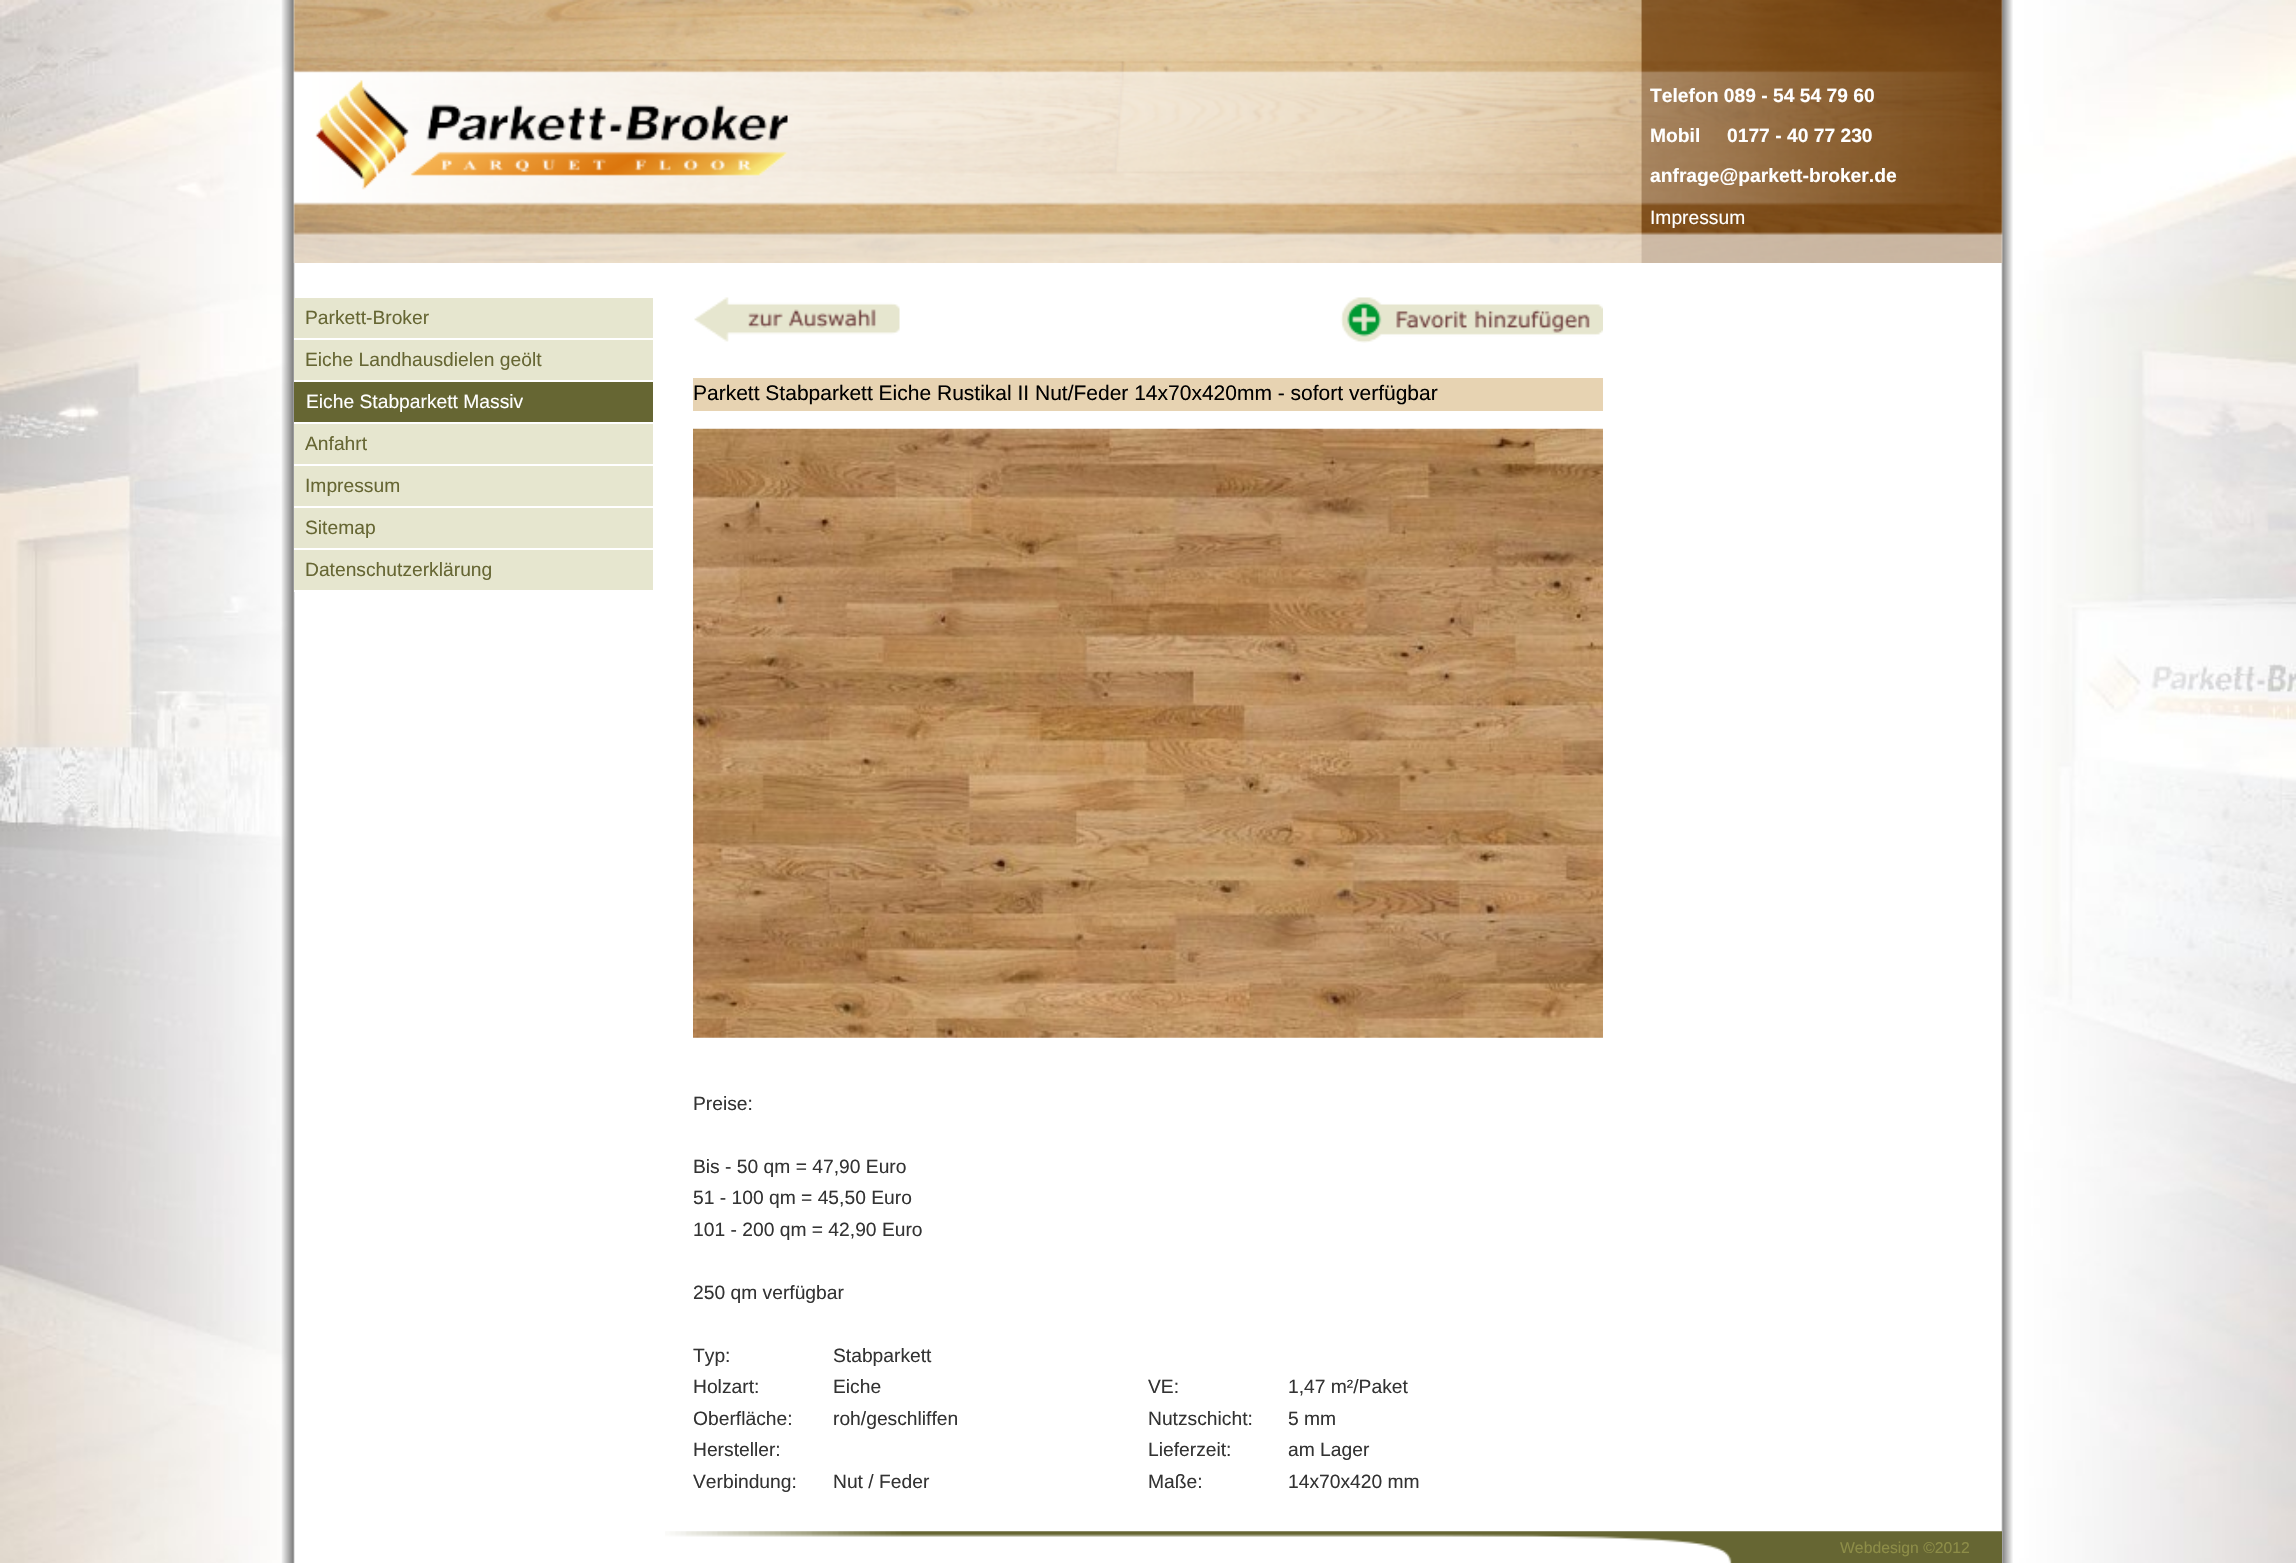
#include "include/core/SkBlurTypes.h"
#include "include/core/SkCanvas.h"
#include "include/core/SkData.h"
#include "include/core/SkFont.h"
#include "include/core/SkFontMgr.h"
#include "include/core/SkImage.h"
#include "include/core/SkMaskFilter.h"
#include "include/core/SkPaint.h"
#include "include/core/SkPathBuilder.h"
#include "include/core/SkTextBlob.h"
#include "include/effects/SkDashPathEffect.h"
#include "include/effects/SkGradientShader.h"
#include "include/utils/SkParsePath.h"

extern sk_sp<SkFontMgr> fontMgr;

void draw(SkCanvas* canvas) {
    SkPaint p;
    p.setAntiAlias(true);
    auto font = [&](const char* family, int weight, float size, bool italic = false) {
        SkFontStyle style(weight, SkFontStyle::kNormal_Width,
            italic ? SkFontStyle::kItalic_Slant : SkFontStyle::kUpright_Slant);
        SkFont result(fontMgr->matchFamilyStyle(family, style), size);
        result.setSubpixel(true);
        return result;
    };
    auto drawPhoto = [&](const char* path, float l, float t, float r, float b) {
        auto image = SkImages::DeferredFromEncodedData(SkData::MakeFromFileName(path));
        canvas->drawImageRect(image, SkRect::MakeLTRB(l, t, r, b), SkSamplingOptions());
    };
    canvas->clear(0xFFFFFFFF);
    drawPhoto("media/1.png", 0, 0, 2296, 1563);
    drawPhoto("media/2.png", 293, 0, 2003, 263);
    drawPhoto("media/3.png", 315, 80, 788, 190);
    auto font1 = font("Liberation Sans", 700, 19.25f);
    p.setColor(0xFFFFFFFF);
    {
        const struct { const char* s; float x, y; } items[] = {
            {"Telefon 089 - 54 54 79 60", 1650, 102},
            {"Mobil     0177 - 40 77 230", 1650, 142},
            {"anfrage@parkett-broker.de", 1650, 182},
        };
        for (auto [s, x, y] : items) {
            canvas->drawString(s, x, y, font1, p);
        }
    }
    auto font2 = font("Liberation Sans", 400, 19.25f);
    canvas->drawString("Impressum", 1650, 224, font2, p);
    p.setColor(0xFFE6E6CF);
    canvas->drawRect(SkRect::MakeLTRB(294, 298, 653, 338), p);
    p.setColor(0xFFFFFFFF);
    canvas->drawRect(SkRect::MakeLTRB(294, 338, 295, 340), p);
    p.setColor(0xFF666633);
    canvas->drawString("Parkett-Broker", 305, 324, font2, p);
    p.setColor(0xFFE6E6CF);
    canvas->drawRect(SkRect::MakeLTRB(294, 340, 653, 380), p);
    p.setColor(0xFFFFFFFF);
    canvas->drawRect(SkRect::MakeLTRB(294, 380, 295, 382), p);
    p.setColor(0xFF666633);
    canvas->drawString("Eiche Landhausdielen geölt", 305, 366, font2, p);
    canvas->drawRect(SkRect::MakeLTRB(294, 382, 653, 422), p);
    p.setColor(0xFFFFFFFF);
    canvas->drawRect(SkRect::MakeLTRB(294, 422, 295, 424), p);
    canvas->drawString("Eiche Stabparkett Massiv", 306, 408, font2, p);
    p.setColor(0xFFE6E6CF);
    canvas->drawRect(SkRect::MakeLTRB(294, 424, 653, 464), p);
    p.setColor(0xFFFFFFFF);
    canvas->drawRect(SkRect::MakeLTRB(294, 464, 295, 466), p);
    p.setColor(0xFF666633);
    canvas->drawString("Anfahrt", 305, 450, font2, p);
    p.setColor(0xFFE6E6CF);
    canvas->drawRect(SkRect::MakeLTRB(294, 466, 653, 506), p);
    p.setColor(0xFFFFFFFF);
    canvas->drawRect(SkRect::MakeLTRB(294, 506, 295, 508), p);
    p.setColor(0xFF666633);
    canvas->drawString("Impressum", 305, 492, font2, p);
    p.setColor(0xFFE6E6CF);
    canvas->drawRect(SkRect::MakeLTRB(294, 508, 653, 548), p);
    p.setColor(0xFFFFFFFF);
    canvas->drawRect(SkRect::MakeLTRB(294, 548, 295, 550), p);
    p.setColor(0xFF666633);
    canvas->drawString("Sitemap", 305, 534, font2, p);
    p.setColor(0xFFE6E6CF);
    canvas->drawRect(SkRect::MakeLTRB(294, 550, 653, 590), p);
    p.setColor(0xFFFFFFFF);
    canvas->drawRect(SkRect::MakeLTRB(294, 590, 295, 592), p);
    p.setColor(0xFF666633);
    canvas->drawString("Datenschutzerklärung", 305, 576, font2, p);
    drawPhoto("media/4.png", 694, 297, 900, 342);
    drawPhoto("media/5.png", 1340, 297, 1603, 343);
    p.setColor(0xFFE7D3B2);
    canvas->drawRect(SkRect::MakeLTRB(693, 378, 1603, 411), p);
    auto font3 = font("Liberation Sans", 400, 21);
    p.setColor(0xFF000000);
    canvas->drawString("Parkett Stabparkett Eiche Rustikal II Nut/Feder 14x70x420mm - sofort verfügbar", 693, 400, font3, p);
    drawPhoto("media/6.png", 693, 428, 1603, 1038);
    p.setColor(0xFF333333);
    {
        const struct { const char* s; float x, y; } items[] = {
            {"Preise:", 693, 1110},
            {"Bis - 50 qm = 47,90 Euro", 693, 1173},
            {"51 - 100 qm = 45,50 Euro", 693, 1204},
            {"101 - 200 qm = 42,90 Euro", 693, 1236},
            {"250 qm verfügbar", 693, 1299},
            {"Typ:", 693, 1362},
            {"Holzart:", 693, 1393},
            {"Oberfläche:", 693, 1425},
            {"Hersteller:", 693, 1456},
            {"Verbindung:", 693, 1488},
            {"Stabparkett", 833, 1362},
            {"Eiche", 833, 1393},
            {"roh/geschliffen", 833, 1425},
            {"Nut / Feder", 833, 1488},
            {"VE:", 1148, 1393},
            {"Nutzschicht:", 1148, 1425},
            {"Lieferzeit:", 1148, 1456},
            {"Maße:", 1148, 1488},
            {"1,47 m²/Paket", 1288, 1393},
            {"5 mm", 1288, 1425},
            {"am Lager", 1288, 1456},
            {"14x70x420 mm", 1288, 1488},
        };
        for (auto [s, x, y] : items) {
            canvas->drawString(s, x, y, font2, p);
        }
    }
    drawPhoto("media/7.png", 665, 1531, 2002, 1563);
    auto font4 = font("Liberation Sans", 400, 15.75f);
    p.setColor(0xFF8D8D47);
    canvas->drawString("Webdesign ©2012", 1840, 1553, font4, p);
}
